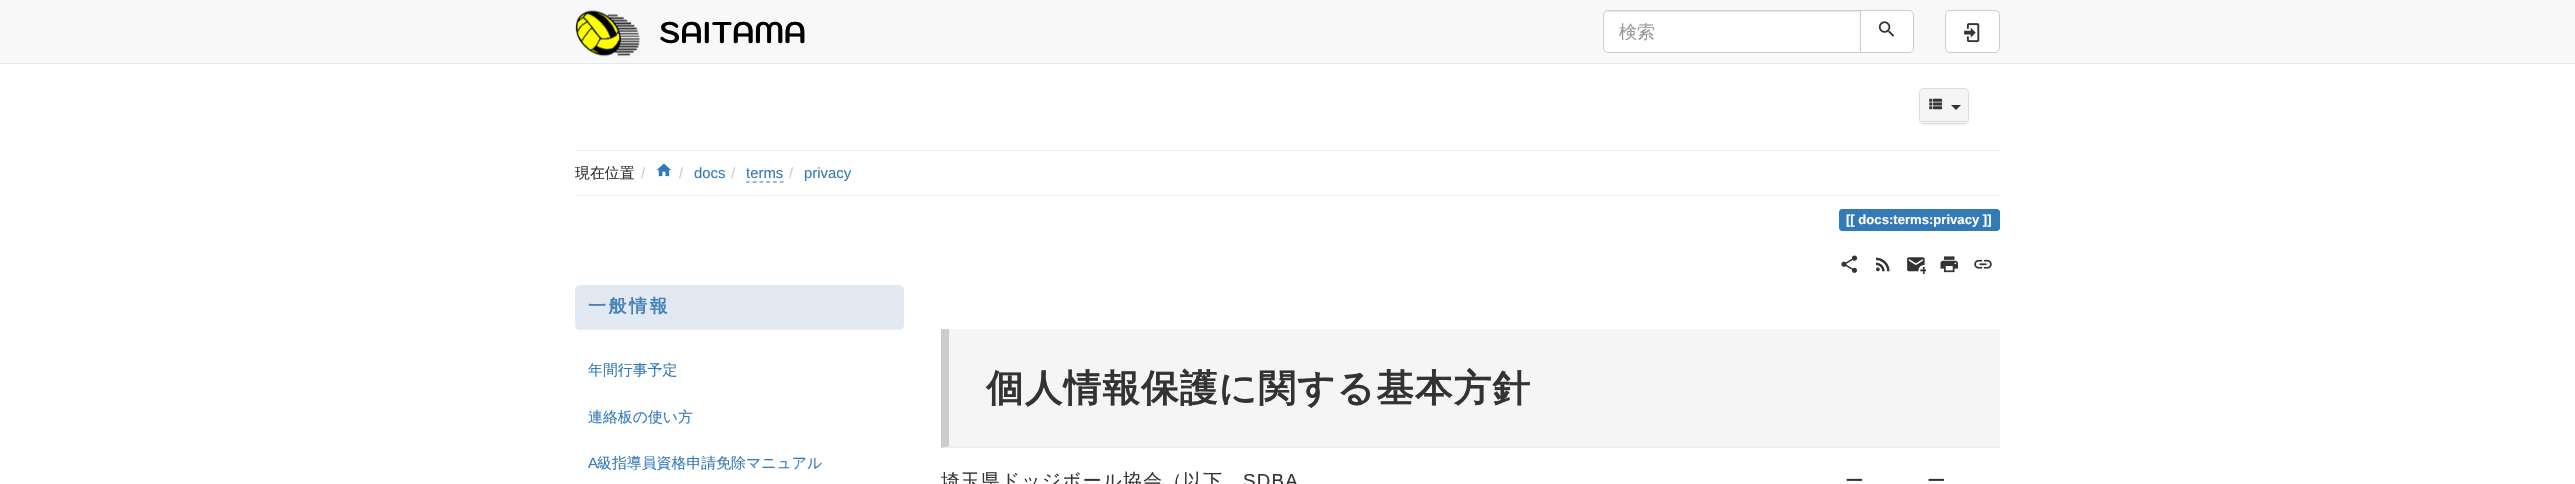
#include "include/core/SkBlurTypes.h"
#include "include/core/SkCanvas.h"
#include "include/core/SkData.h"
#include "include/core/SkFont.h"
#include "include/core/SkFontMgr.h"
#include "include/core/SkImage.h"
#include "include/core/SkMaskFilter.h"
#include "include/core/SkPaint.h"
#include "include/core/SkPathBuilder.h"
#include "include/core/SkTextBlob.h"
#include "include/effects/SkDashPathEffect.h"
#include "include/effects/SkGradientShader.h"
#include "include/utils/SkParsePath.h"

extern sk_sp<SkFontMgr> fontMgr;

void draw(SkCanvas* canvas) {
    SkPaint p;
    p.setAntiAlias(true);
    auto font = [&](const char* family, int weight, float size, bool italic = false) {
        SkFontStyle style(weight, SkFontStyle::kNormal_Width,
            italic ? SkFontStyle::kItalic_Slant : SkFontStyle::kUpright_Slant);
        SkFont result(fontMgr->matchFamilyStyle(family, style), size);
        result.setSubpixel(true);
        return result;
    };
    auto drawTracked = [&](const char* s, float x, float y, const SkFont& font, const SkPaint& ink, float letter, float word) {
        std::vector<SkGlyphID> glyphs(font.countText(s, strlen(s), SkTextEncoding::kUTF8));
        std::vector<float> xs(glyphs.size());
        font.textToGlyphs(s, strlen(s), SkTextEncoding::kUTF8, glyphs);
        font.getXPos(glyphs, xs, x);
        float extra = 0;
        for (size_t i = 0; i < glyphs.size(); i++) {
            xs[i] += extra;
            extra += letter + word * (glyphs[i] == font.unicharToGlyph(' '));
        }
        canvas->drawTextBlob(SkTextBlob::MakeFromPosHGlyphs(glyphs, xs, y, font), 0, 0, ink);
    };
    auto drawPhoto = [&](const char* path, float l, float t, float r, float b) {
        auto image = SkImages::DeferredFromEncodedData(SkData::MakeFromFileName(path));
        canvas->drawImageRect(image, SkRect::MakeLTRB(l, t, r, b), SkSamplingOptions());
    };
    canvas->clear(0xFFFFFFFF);
    p.setColor(0xFFF8F8F8);
    canvas->drawRect(SkRect::MakeLTRB(0, 0, 2575, 63), p);
    p.setColor(0xFFE7E7E7);
    canvas->drawRect(SkRect::MakeLTRB(0, 63, 2575, 64), p);
    drawPhoto("media/1.png", 575, 10, 640, 57);
    auto font1 = font("Kodchasan", 700, 30);
    p.setColor(0xFF000000);
    canvas->drawString("SAITAMA", 659, 43, font1, p);
    p.setColor(0xFFFFFFFF);
    canvas->drawPath(SkPathBuilder().moveTo(1608, 10).lineTo(1861, 10).lineTo(1861, 53).lineTo(1608, 53).cubicTo(1605, 53, 1603, 51, 1603, 48).lineTo(1603, 15).cubicTo(1603, 12, 1605, 10, 1608, 10).close().detach(), p);
    p.setColor(0xFFECECEC);
    canvas->drawPath(SkPathBuilder().moveTo(1608, 12).lineTo(1860, 12).lineTo(1860, 11).lineTo(1608, 11).cubicTo(1606, 11, 1604, 13, 1604, 15).lineTo(1604, 16).cubicTo(1604, 14, 1605, 12, 1608, 12).close().detach(), p);
    p.setStyle(SkPaint::kStroke_Style);
    p.setStrokeWidth(1);
    p.setColor(0xFFCCCCCC);
    canvas->drawPath(SkPathBuilder().moveTo(1608, 10.5f).lineTo(1860.5f, 10.5f).lineTo(1860.5f, 52.5f).lineTo(1608, 52.5f).cubicTo(1605.5f, 52.5f, 1603.5f, 50.5f, 1603.5f, 48).lineTo(1603.5f, 15).cubicTo(1603.5f, 12.5f, 1605.5f, 10.5f, 1608, 10.5f).close().detach(), p);
    auto font2 = font("WenQuanYi Zen Hei", 500, 18);
    p.setStyle(SkPaint::kFill_Style);
    p.setColor(0xFF999999);
    canvas->drawString("検索", 1619, 38, font2, p);
    p.setColor(0xFFFFFFFF);
    canvas->drawPath(SkPathBuilder().moveTo(1860.5f, 10.5f).lineTo(1909, 10.5f).cubicTo(1911.5f, 10.5f, 1913.5f, 12.5f, 1913.5f, 15).lineTo(1913.5f, 48).cubicTo(1913.5f, 50.5f, 1911.5f, 52.5f, 1909, 52.5f).lineTo(1860.5f, 52.5f).close().detach(), p);
    p.setStyle(SkPaint::kStroke_Style);
    p.setColor(0xFFCCCCCC);
    canvas->drawPath(SkPathBuilder().moveTo(1860.5f, 10.5f).lineTo(1909, 10.5f).cubicTo(1911.5f, 10.5f, 1913.5f, 12.5f, 1913.5f, 15).lineTo(1913.5f, 48).cubicTo(1913.5f, 50.5f, 1911.5f, 52.5f, 1909, 52.5f).lineTo(1860.5f, 52.5f).close().detach(), p);
    drawPhoto("media/2.png", 1878, 21, 1895, 37);
    p.setStyle(SkPaint::kFill_Style);
    p.setColor(0xFFFFFFFF);
    canvas->drawRoundRect(SkRect::MakeLTRB(1945.5f, 10.5f, 1999.5f, 52.5f), 4.5f, 4.5f, p);
    p.setStyle(SkPaint::kStroke_Style);
    p.setColor(0xFFCCCCCC);
    canvas->drawRoundRect(SkRect::MakeLTRB(1945.5f, 10.5f, 1999.5f, 52.5f), 4.5f, 4.5f, p);
    drawPhoto("media/3.png", 1964, 23, 1980, 43);
    p.setStyle(SkPaint::kFill_Style);
    p.setColor(0xFFEEEEEE);
    canvas->drawRect(SkRect::MakeLTRB(575, 150, 2000, 151), p);
    auto font3 = font("WenQuanYi Zen Hei", 500, 14.9f);
    p.setColor(0xFF333333);
    canvas->drawString("現在位置", 575, 178, font3, p);
    auto font4 = font("Liberation Sans", 400, 14.9f);
    p.setColor(0xFFCCCCCC);
    canvas->drawString("/", 641, 178, font4, p);
    drawPhoto("media/4.png", 656, 163, 672, 177);
    canvas->drawString("/", 679, 178, font4, p);
    p.setColor(0xFF337AB7);
    canvas->drawString("docs", 694, 178, font4, p);
    p.setColor(0xFFCCCCCC);
    canvas->drawString("/", 731, 178, font4, p);
    p.setColor(0xFF337AB7);
    canvas->drawString("terms", 746, 178, font4, p);
    p.setStyle(SkPaint::kStroke_Style);
    p.setStrokeWidth(1.2f);
    p.setPathEffect(SkDashPathEffect::Make({{3.75f, 3}}, 0));
    canvas->drawPath(SkPathBuilder().moveTo(746, 182).lineTo(784, 182).detach(), p);
    p.setPathEffect(nullptr);
    p.setStyle(SkPaint::kFill_Style);
    p.setColor(0xFFCCCCCC);
    canvas->drawString("/", 789, 178, font4, p);
    p.setColor(0xFF337AB7);
    canvas->drawString("privacy", 804, 178, font4, p);
    p.setColor(0xFFEEEEEE);
    canvas->drawRect(SkRect::MakeLTRB(575, 195, 2000, 196), p);
    p.setColor(0xFF337AB7);
    canvas->drawPath(SkPathBuilder().moveTo(1842, 209).lineTo(1859, 209).lineTo(1859, 231).lineTo(1842, 231).cubicTo(1840.5f, 231, 1839, 229.5f, 1839, 228).lineTo(1839, 212).cubicTo(1839, 210.5f, 1840.5f, 209, 1842, 209).close().detach(), p);
    canvas->drawRect(SkRect::MakeLTRB(1859, 209, 1980, 231), p);
    canvas->drawPath(SkPathBuilder().moveTo(1980, 209).lineTo(1997, 209).cubicTo(1998.5f, 209, 2000, 210.5f, 2000, 212).lineTo(2000, 228).cubicTo(2000, 229.5f, 1998.5f, 231, 1997, 231).lineTo(1980, 231).close().detach(), p);
    auto font5 = font("Liberation Sans", 700, 13.1f);
    p.setColor(0xFFFFFFFF);
    canvas->drawString("[[ docs:terms:privacy ]]", 1846, 224, font5, p);
    p.setColor(0xFFE2E9F2);
    canvas->drawRoundRect(SkRect::MakeLTRB(575, 285, 904, 330), 5, 5, p);
    p.setColor(0xFFEEEEEE);
    canvas->drawRect(SkRect::MakeLTRB(578, 329, 901, 330), p);
    auto font6 = font("WenQuanYi Zen Hei", 700, 18);
    p.setColor(0xFF4682B4);
    drawTracked("一般情報", 588, 312, font6, p, 2.5f, 0);
    p.setColor(0xFF337AB7);
    canvas->drawString("年間行事予定", 588, 375, font3, p);
    canvas->drawString("連絡板の使い方", 588, 422, font3, p);
    canvas->drawString("A", 588, 468, font4, p);
    canvas->drawString("級指導員資格申請免除マニュアル", 597, 468, font3, p);
    drawPhoto("media/5.png", 1841, 255, 1858, 273);
    drawPhoto("media/6.png", 1876, 257, 1890, 272);
    drawPhoto("media/7.png", 1907, 257, 1926, 274);
    drawPhoto("media/8.png", 1940, 256, 1958, 273);
    drawPhoto("media/9.png", 1974, 259, 1992, 269);
    p.setColor(0x0D000000);
    p.setMaskFilter(SkMaskFilter::MakeBlur(kNormal_SkBlurStyle, 0.5f));
    canvas->drawRoundRect(SkRect::MakeLTRB(1919, 89, 1969, 125), 5, 5, p);
    p.setMaskFilter(nullptr);
    p.setStyle(SkPaint::kStroke_Style);
    p.setStrokeWidth(1);
    p.setColor(0xFFDDDDDD);
    canvas->drawRoundRect(SkRect::MakeLTRB(1919.5f, 88.5f, 1968.5f, 123.5f), 4.5f, 4.5f, p);
    p.setStyle(SkPaint::kFill_Style);
    p.setColor(0xFFF5F5F5);
    canvas->drawPath(SkPathBuilder().moveTo(1924, 89).lineTo(1964, 89).cubicTo(1966, 89, 1968, 91, 1968, 93).lineTo(1968, 123).lineTo(1920, 123).lineTo(1920, 93).cubicTo(1920, 91, 1922, 89, 1924, 89).close().detach(), p);
    p.setColor(0xFFDDDDDD);
    canvas->drawRect(SkRect::MakeLTRB(1920, 121, 1968, 122), p);
    drawPhoto("media/10.png", 1929, 98, 1942, 110);
    p.setColor(0xFF333333);
    canvas->drawPath(SkPathBuilder().moveTo(1951, 105).lineTo(1961, 105).lineTo(1956, 110).close().detach(), p);
    p.setColor(0xFFF5F5F5);
    canvas->drawRect(SkRect::MakeLTRB(941, 329, 2000, 448), p);
    p.setColor(0xFFEEEEEE);
    canvas->drawPath(SkPathBuilder().moveTo(2000, 448).lineTo(941, 448).lineTo(949, 446).lineTo(2000, 446).close().detach(), p);
    p.setColor(0xFFCCCCCC);
    canvas->drawPath(SkPathBuilder().moveTo(941, 448).lineTo(941, 329).lineTo(949, 329).lineTo(949, 446).close().detach(), p);
    auto font7 = font("WenQuanYi Zen Hei", 700, 37.5f);
    p.setColor(0xFF333333);
    drawTracked("個人情報保護に関する基本方針", 986, 401, font7, p, 1.25f, 0);
    auto font8 = font("WenQuanYi Zen Hei", 500, 18.75f);
    drawTracked("埼玉県ドッジボール協会（以下", 941, 487, font8, p, 1.25f, 0);
    auto font9 = font("Liberation Sans", 400, 18.75f);
    drawTracked("SDBA", 1243, 487, font9, p, 1.25f, 0);
    drawTracked("ー", 1845, 487, font8, p, 1.25f, 0);
    drawTracked("ー", 1927, 487, font8, p, 1.25f, 0);
}
